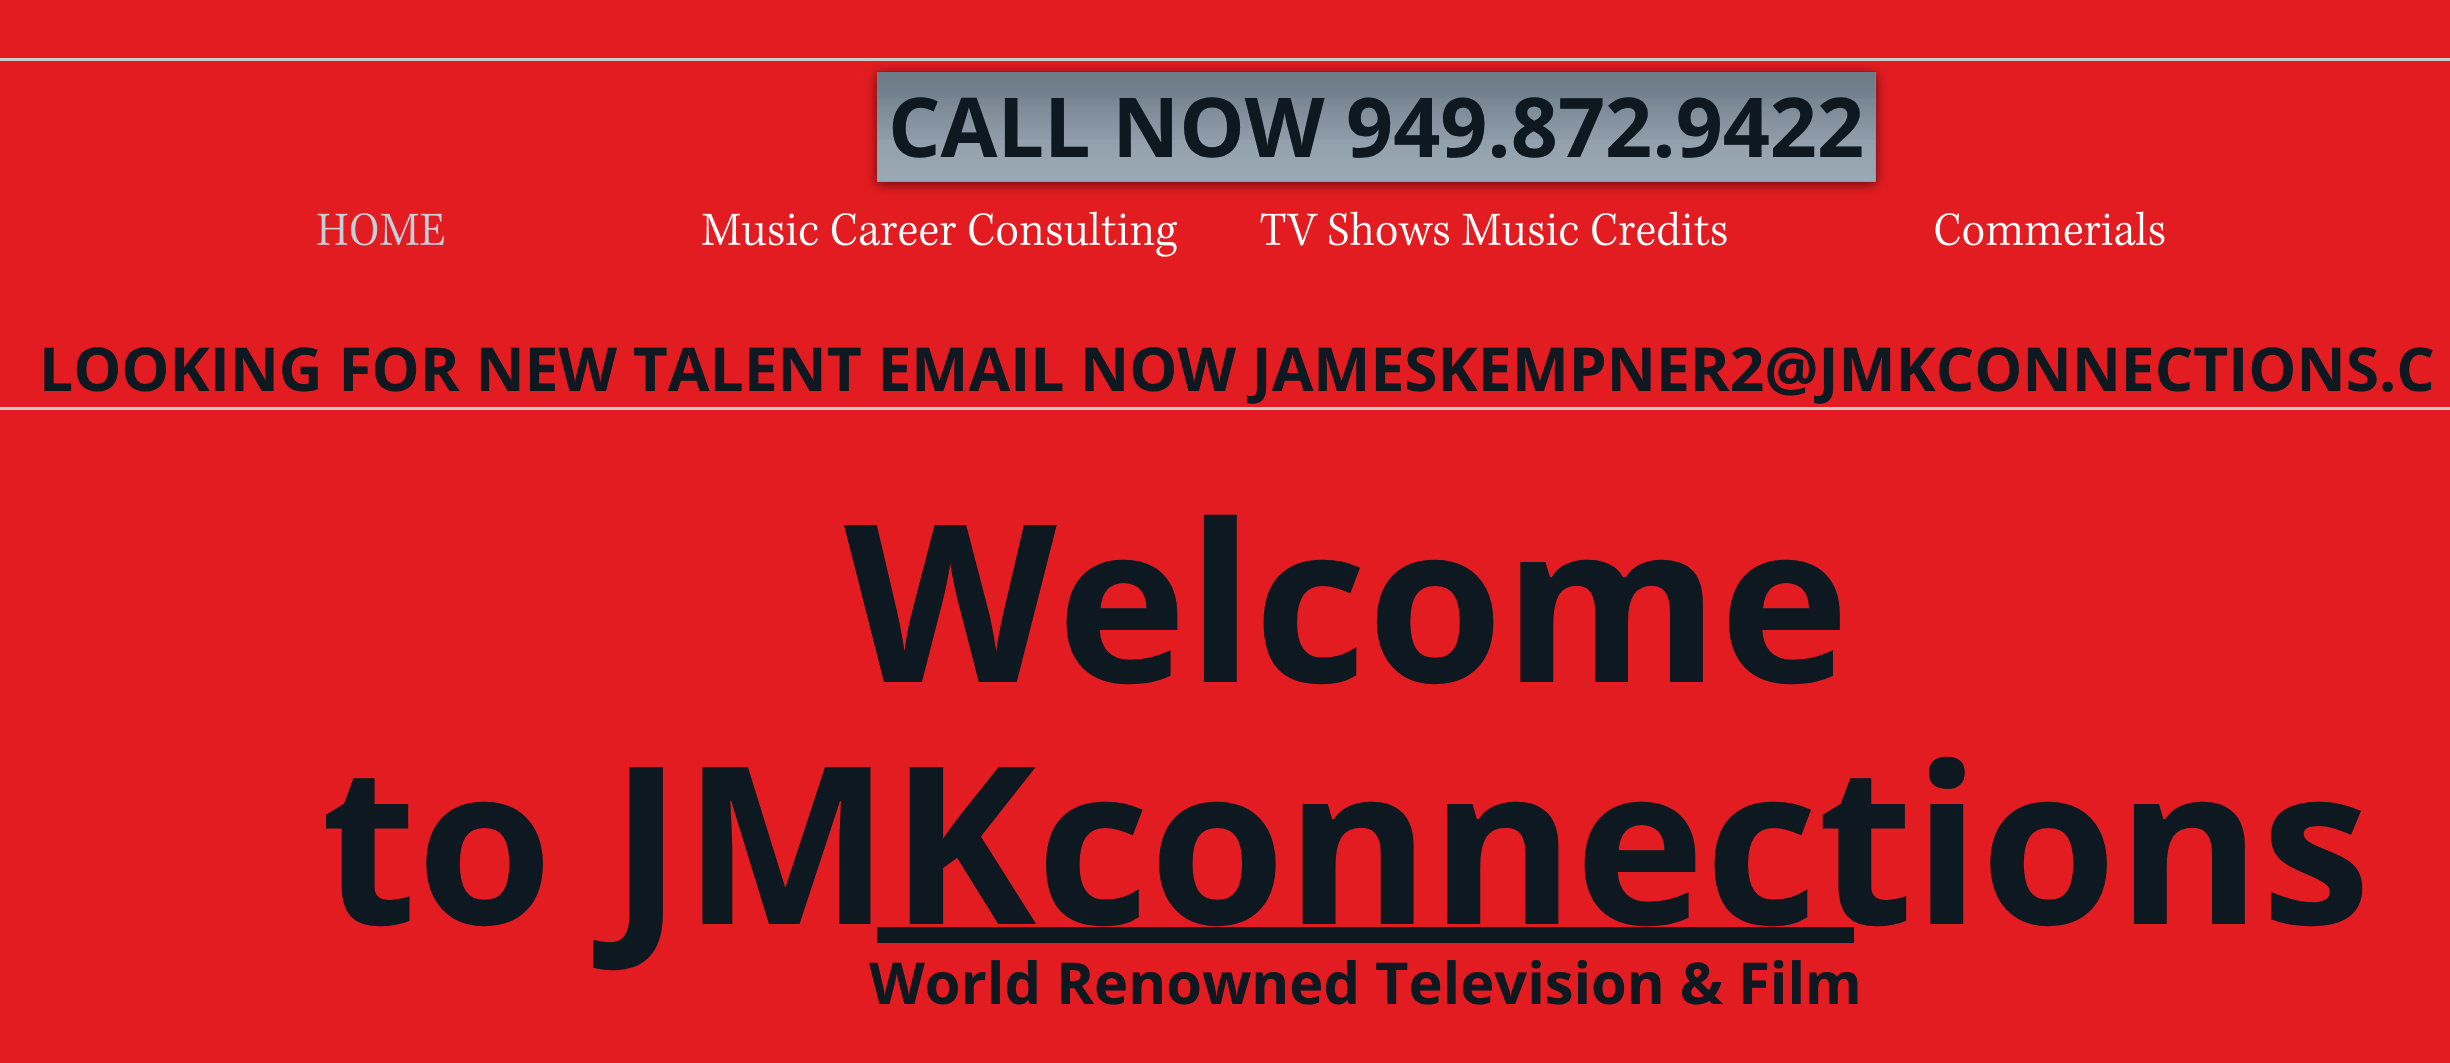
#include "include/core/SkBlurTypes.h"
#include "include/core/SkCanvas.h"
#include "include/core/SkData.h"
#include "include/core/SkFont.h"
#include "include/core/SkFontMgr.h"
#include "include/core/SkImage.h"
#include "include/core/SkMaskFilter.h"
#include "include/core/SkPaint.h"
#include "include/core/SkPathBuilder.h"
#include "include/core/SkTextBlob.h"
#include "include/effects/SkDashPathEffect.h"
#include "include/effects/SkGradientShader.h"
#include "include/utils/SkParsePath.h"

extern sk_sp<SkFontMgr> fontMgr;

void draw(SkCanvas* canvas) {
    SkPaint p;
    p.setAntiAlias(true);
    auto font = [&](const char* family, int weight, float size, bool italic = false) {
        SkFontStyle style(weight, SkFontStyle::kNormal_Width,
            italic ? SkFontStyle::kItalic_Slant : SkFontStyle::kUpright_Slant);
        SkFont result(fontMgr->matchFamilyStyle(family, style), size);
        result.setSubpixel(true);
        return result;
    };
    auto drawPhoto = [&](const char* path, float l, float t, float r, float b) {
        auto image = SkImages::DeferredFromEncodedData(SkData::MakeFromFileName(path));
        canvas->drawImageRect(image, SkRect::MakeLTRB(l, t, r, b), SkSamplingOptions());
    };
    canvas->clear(0xFFE21C21);
    p.setColor(0xFFCACACA);
    canvas->drawRect(SkRect::MakeLTRB(0, 58, 2450, 61), p);
    canvas->drawRect(SkRect::MakeLTRB(0, 407, 2450, 410), p);
    drawPhoto("media/1.png", 317, 213, 445, 246);
    drawPhoto("media/2.png", 702, 211, 1178, 257);
    drawPhoto("media/3.png", 1260, 211, 1727, 246);
    drawPhoto("media/4.png", 1935, 211, 2165, 246);
    p.setColor(0x99000000);
    p.setMaskFilter(SkMaskFilter::MakeBlur(kNormal_SkBlurStyle, 5.5f));
    canvas->drawRect(SkRect::MakeLTRB(877, 74, 1876, 184), p);
    p.setMaskFilter(nullptr);
    p.setColor(0xFF8293A1);
    canvas->drawRect(SkRect::MakeLTRB(877, 72, 1876, 182), p);
    drawPhoto("media/5.png", 877, 71, 1876, 140);
    drawPhoto("media/6.png", 877, 98, 1876, 182);
    auto font1 = font("Open Sans", 700, 82.5f);
    p.setColor(0xFF0E1821);
    canvas->drawString("CALL NOW 949.872.9422", 888, 157, font1, p);
    auto font2 = font("Open Sans", 700, 60.5f);
    canvas->drawString("LOOKING FOR NEW TALENT EMAIL NOW JAMESKEMPNER2@JMKCONNECTIONS.C", 39, 391, font2, p);
    auto font3 = font("Open Sans", 700, 220);
    canvas->drawString("Welcome", 844, 682, font3, p);
    canvas->drawString("to JMKconnections", 321, 924, font3, p);
    canvas->drawRect(SkRect::MakeLTRB(877, 927, 1854, 943), p);
    auto font4 = font("Open Sans", 700, 57.75f);
    canvas->drawString("World Renowned Television & Film", 869, 1004, font4, p);
}
